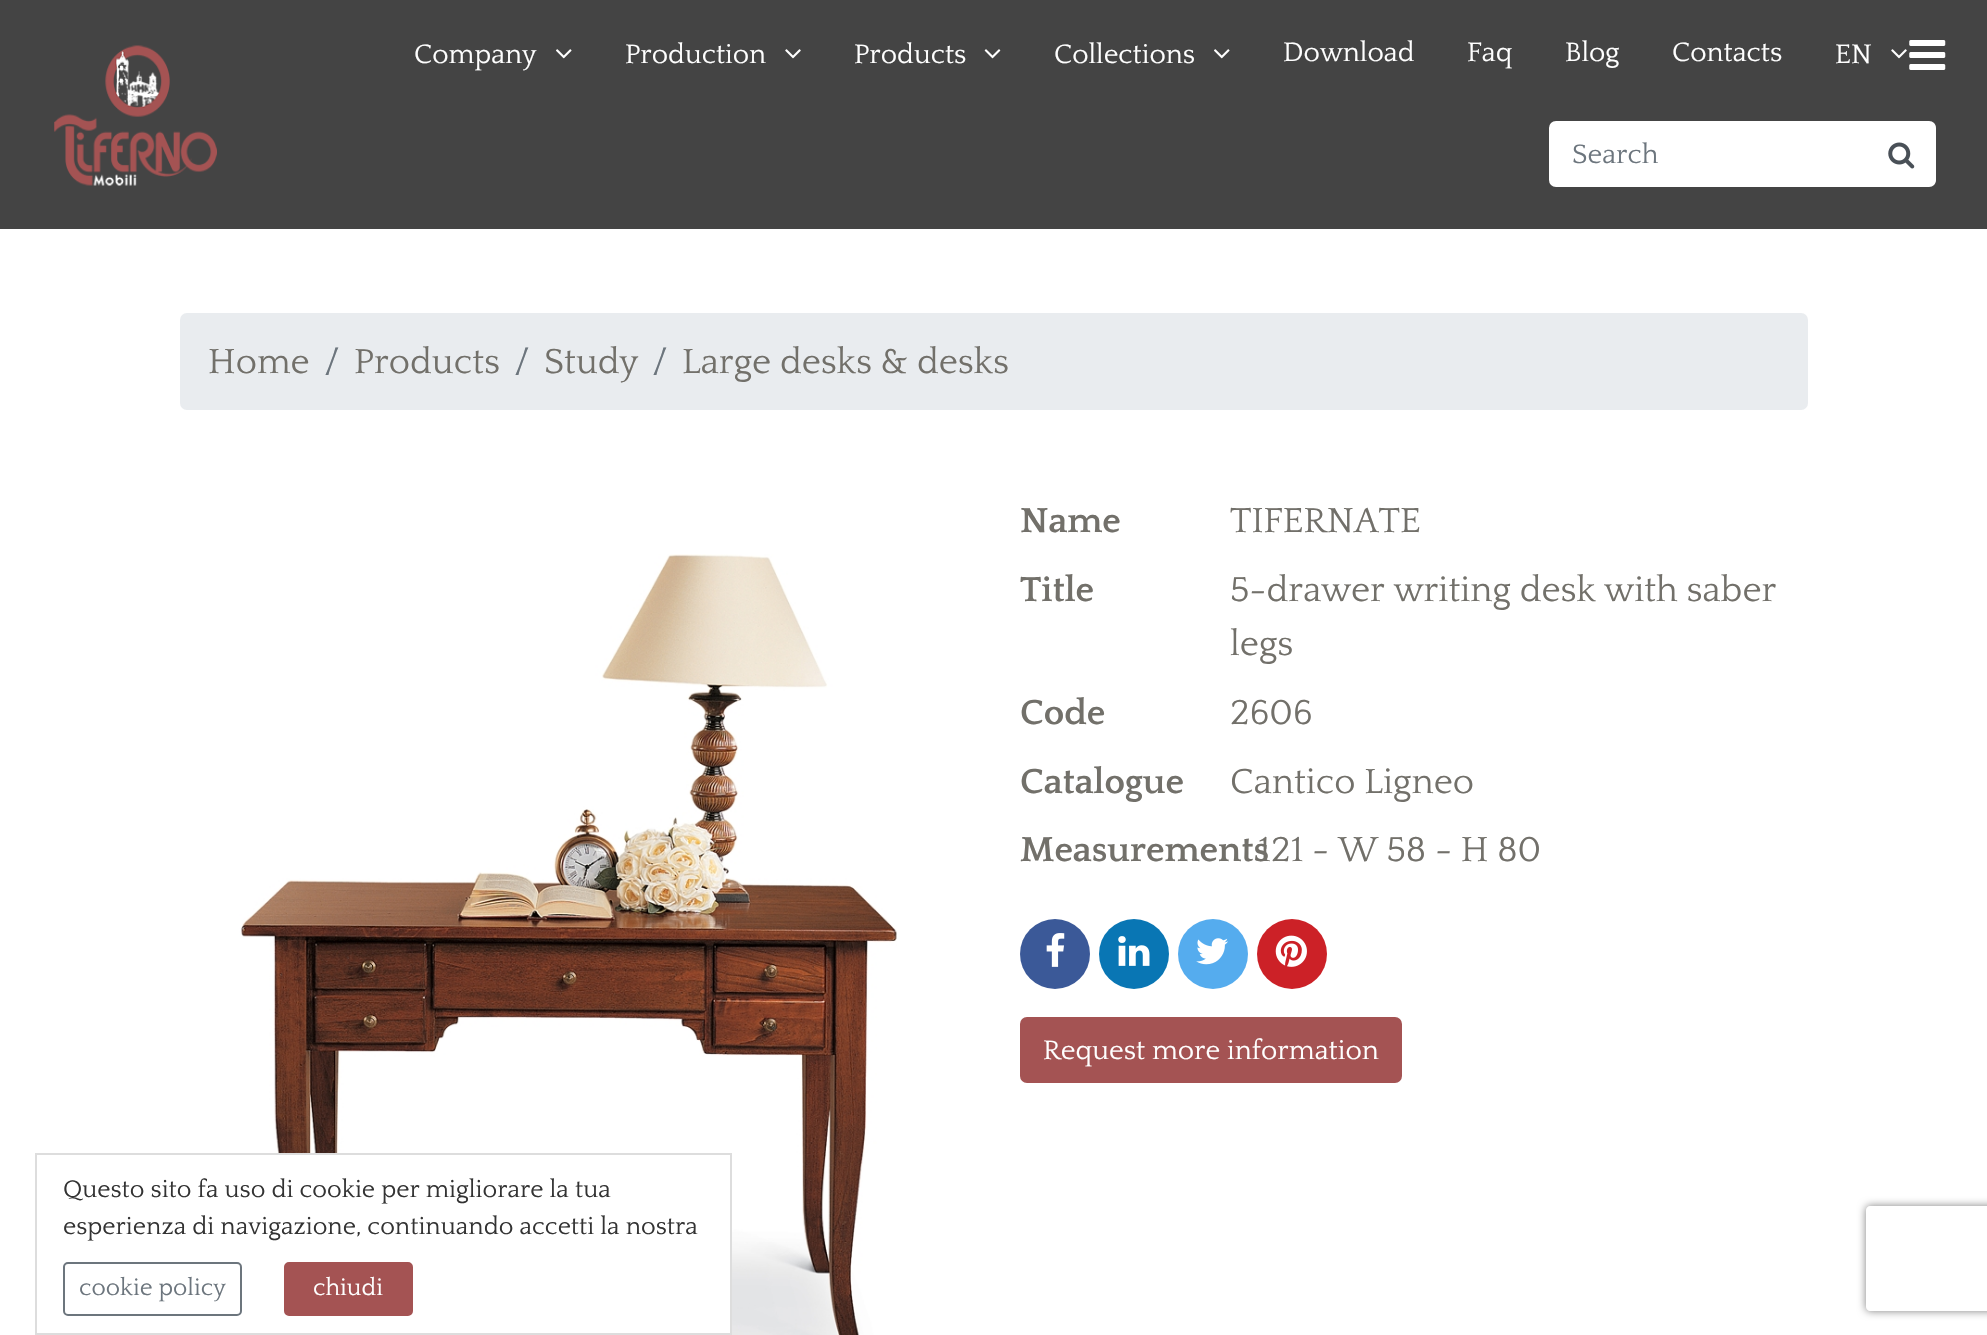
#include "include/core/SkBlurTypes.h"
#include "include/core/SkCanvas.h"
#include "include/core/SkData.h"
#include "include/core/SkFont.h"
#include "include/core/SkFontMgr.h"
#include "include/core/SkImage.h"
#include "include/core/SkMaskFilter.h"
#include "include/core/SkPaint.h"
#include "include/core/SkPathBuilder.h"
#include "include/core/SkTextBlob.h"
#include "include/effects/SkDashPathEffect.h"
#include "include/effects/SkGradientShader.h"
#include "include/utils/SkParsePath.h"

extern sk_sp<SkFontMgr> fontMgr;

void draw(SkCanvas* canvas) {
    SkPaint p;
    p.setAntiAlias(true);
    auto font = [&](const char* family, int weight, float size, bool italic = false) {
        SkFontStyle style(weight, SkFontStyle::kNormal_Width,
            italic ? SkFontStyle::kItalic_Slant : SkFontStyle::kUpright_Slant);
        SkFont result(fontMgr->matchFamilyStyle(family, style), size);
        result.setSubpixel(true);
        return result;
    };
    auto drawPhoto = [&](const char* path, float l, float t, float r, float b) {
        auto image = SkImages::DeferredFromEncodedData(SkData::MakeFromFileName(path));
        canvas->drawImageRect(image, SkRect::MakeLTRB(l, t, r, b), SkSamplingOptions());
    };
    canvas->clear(0xFFFFFFFF);
    p.setColor(0xFF444444);
    canvas->drawRect(SkRect::MakeLTRB(0, 0, 1987, 229), p);
    drawPhoto("media/1.png", 54, 45, 217, 186);
    auto font1 = font("Quattrocento", 400, 28);
    p.setColor(0xFFFFFFFF);
    canvas->drawString("Company", 414, 63, font1, p);
    drawPhoto("media/2.png", 556, 49, 572, 59);
    canvas->drawString("Production", 625, 63, font1, p);
    drawPhoto("media/3.png", 785, 49, 801, 59);
    canvas->drawString("Products", 854, 63, font1, p);
    drawPhoto("media/4.png", 984, 49, 1001, 59);
    canvas->drawString("Collections", 1054, 63, font1, p);
    drawPhoto("media/2.png", 1214, 49, 1230, 59);
    {
        const struct { const char* s; float x, y; } items[] = {
            {"Download", 1283, 61},
            {"Faq", 1467, 61},
            {"Blog", 1565, 61},
            {"Contacts", 1672, 61},
            {"EN", 1835, 63},
        };
        for (auto [s, x, y] : items) {
            canvas->drawString(s, x, y, font1, p);
        }
    }
    drawPhoto("media/3.png", 1891, 49, 1907, 59);
    canvas->drawPath(SkPathBuilder().moveTo(1556, 122).lineTo(1866, 122).lineTo(1866, 186).lineTo(1556, 186).cubicTo(1552.5f, 186, 1550, 183.5f, 1550, 180).lineTo(1550, 128).cubicTo(1550, 124.5f, 1552.5f, 122, 1556, 122).close().detach(), p);
    p.setStyle(SkPaint::kStroke_Style);
    p.setStrokeWidth(2);
    canvas->drawPath(SkPathBuilder().moveTo(1556, 122).lineTo(1866, 122).lineTo(1866, 186).lineTo(1556, 186).cubicTo(1552.5f, 186, 1550, 183.5f, 1550, 180).lineTo(1550, 128).cubicTo(1550, 124.5f, 1552.5f, 122, 1556, 122).close().detach(), p);
    p.setStyle(SkPaint::kFill_Style);
    p.setColor(0xFF6C757D);
    canvas->drawString("Search", 1572, 163, font1, p);
    p.setColor(0xFFFFFFFF);
    canvas->drawPath(SkPathBuilder().moveTo(1867, 121).lineTo(1929, 121).cubicTo(1933, 121, 1936, 124, 1936, 128).lineTo(1936, 180).cubicTo(1936, 184, 1933, 187, 1929, 187).lineTo(1867, 187).close().detach(), p);
    drawPhoto("media/5.png", 1888, 142, 1915, 169);
    drawPhoto("media/6.png", 1909, 40, 1946, 70);
    p.setColor(0xFFE9ECEF);
    canvas->drawRoundRect(SkRect::MakeLTRB(180, 313, 1808, 410), 7, 7, p);
    auto font2 = font("Quattrocento", 400, 36.4f);
    p.setColor(0xFF72706A);
    canvas->drawString("Home", 208, 373, font2, p);
    p.setColor(0xFF6C757D);
    canvas->drawString("/", 324, 373, font2, p);
    p.setColor(0xFF72706A);
    canvas->drawString("Products", 354, 373, font2, p);
    p.setColor(0xFF6C757D);
    canvas->drawString("/", 514, 373, font2, p);
    p.setColor(0xFF72706A);
    canvas->drawString("Study", 544, 373, font2, p);
    p.setColor(0xFF6C757D);
    canvas->drawString("/", 652, 373, font2, p);
    p.setColor(0xFF72706A);
    canvas->drawString("Large desks & desks", 682, 373, font2, p);
    drawPhoto("media/7.png", 239, 554, 897, 1335);
    auto font3 = font("Quattrocento", 700, 36.4f);
    canvas->drawString("Name", 1020, 532, font3, p);
    canvas->drawString("TIFERNATE", 1230, 532, font2, p);
    canvas->drawString("Title", 1020, 601, font3, p);
    canvas->drawString("5-drawer writing desk with saber", 1230, 601, font2, p);
    canvas->drawString("legs", 1230, 655, font2, p);
    canvas->drawString("Code", 1020, 724, font3, p);
    canvas->drawString("2606", 1230, 724, font2, p);
    canvas->drawString("Catalogue", 1020, 793, font3, p);
    canvas->drawString("Cantico Ligneo", 1230, 793, font2, p);
    canvas->drawString("Measurements", 1020, 861, font3, p);
    canvas->drawString("121 - W 58 - H 80", 1258, 861, font2, p);
    p.setColor(0xFF3B5998);
    canvas->drawCircle(1055, 954, 35, p);
    drawPhoto("media/8.png", 1046, 933, 1065, 967);
    p.setColor(0xFF0976B4);
    canvas->drawCircle(1134, 954, 35, p);
    drawPhoto("media/9.png", 1118, 936, 1150, 966);
    p.setColor(0xFF55ACEE);
    canvas->drawCircle(1213, 954, 35, p);
    drawPhoto("media/10.png", 1196, 938, 1228, 965);
    p.setColor(0xFFCC2127);
    canvas->drawCircle(1292, 954, 35, p);
    drawPhoto("media/11.png", 1275, 935, 1307, 967);
    p.setColor(0xFFA45353);
    canvas->drawRoundRect(SkRect::MakeLTRB(1021, 1018, 1401, 1082), 6, 6, p);
    p.setStyle(SkPaint::kStroke_Style);
    canvas->drawRoundRect(SkRect::MakeLTRB(1021, 1018, 1401, 1082), 6, 6, p);
    p.setStyle(SkPaint::kFill_Style);
    p.setColor(0xFFFFFFFF);
    canvas->drawString("Request more information", 1043, 1059, font1, p);
    canvas->drawRect(SkRect::MakeLTRB(239, 1155, 730, 1333), p);
    p.setStyle(SkPaint::kStroke_Style);
    p.setColor(0xFFDDDDDD);
    canvas->drawRect(SkRect::MakeLTRB(36, 1154, 731, 1334), p);
    auto font4 = font("Quattrocento", 400, 25.2f);
    p.setStyle(SkPaint::kFill_Style);
    p.setColor(0xFF333333);
    canvas->drawString("Questo sito fa uso di cookie per migliorare la tua", 63, 1197, font4, p);
    canvas->drawString("esperienza di navigazione, continuando accetti la nostra", 63, 1234, font4, p);
    p.setStyle(SkPaint::kStroke_Style);
    p.setColor(0xFF6C757D);
    canvas->drawRoundRect(SkRect::MakeLTRB(64, 1263, 241, 1315), 4, 4, p);
    auto font5 = font("Quattrocento", 400, 24.5f);
    p.setStyle(SkPaint::kFill_Style);
    canvas->drawString("cookie policy", 79, 1295, font5, p);
    p.setColor(0xFFA45353);
    canvas->drawRoundRect(SkRect::MakeLTRB(285, 1263, 412, 1315), 4, 4, p);
    p.setStyle(SkPaint::kStroke_Style);
    canvas->drawRoundRect(SkRect::MakeLTRB(285, 1263, 412, 1315), 4, 4, p);
    p.setStyle(SkPaint::kFill_Style);
    p.setColor(0xFFFFFFFF);
    canvas->drawString("chiudi", 313, 1295, font5, p);
    canvas->save();
    canvas->clipPath(SkPathBuilder(SkPathFillType::kEvenOdd).moveTo(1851, 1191).lineTo(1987, 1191).lineTo(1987, 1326).lineTo(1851, 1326).close().moveTo(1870, 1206).lineTo(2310, 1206).cubicTo(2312, 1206, 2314, 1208, 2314, 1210).lineTo(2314, 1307).cubicTo(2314, 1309, 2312, 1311, 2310, 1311).lineTo(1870, 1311).cubicTo(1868, 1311, 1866, 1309, 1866, 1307).lineTo(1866, 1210).cubicTo(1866, 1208, 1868, 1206, 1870, 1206).close().detach(), true);
    p.setColor(0xFF808080);
    p.setMaskFilter(SkMaskFilter::MakeBlur(kNormal_SkBlurStyle, 4.5f));
    canvas->drawRoundRect(SkRect::MakeLTRB(1866, 1206, 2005, 1311), 4, 4, p);
    p.setMaskFilter(nullptr);
    canvas->restore();
}
